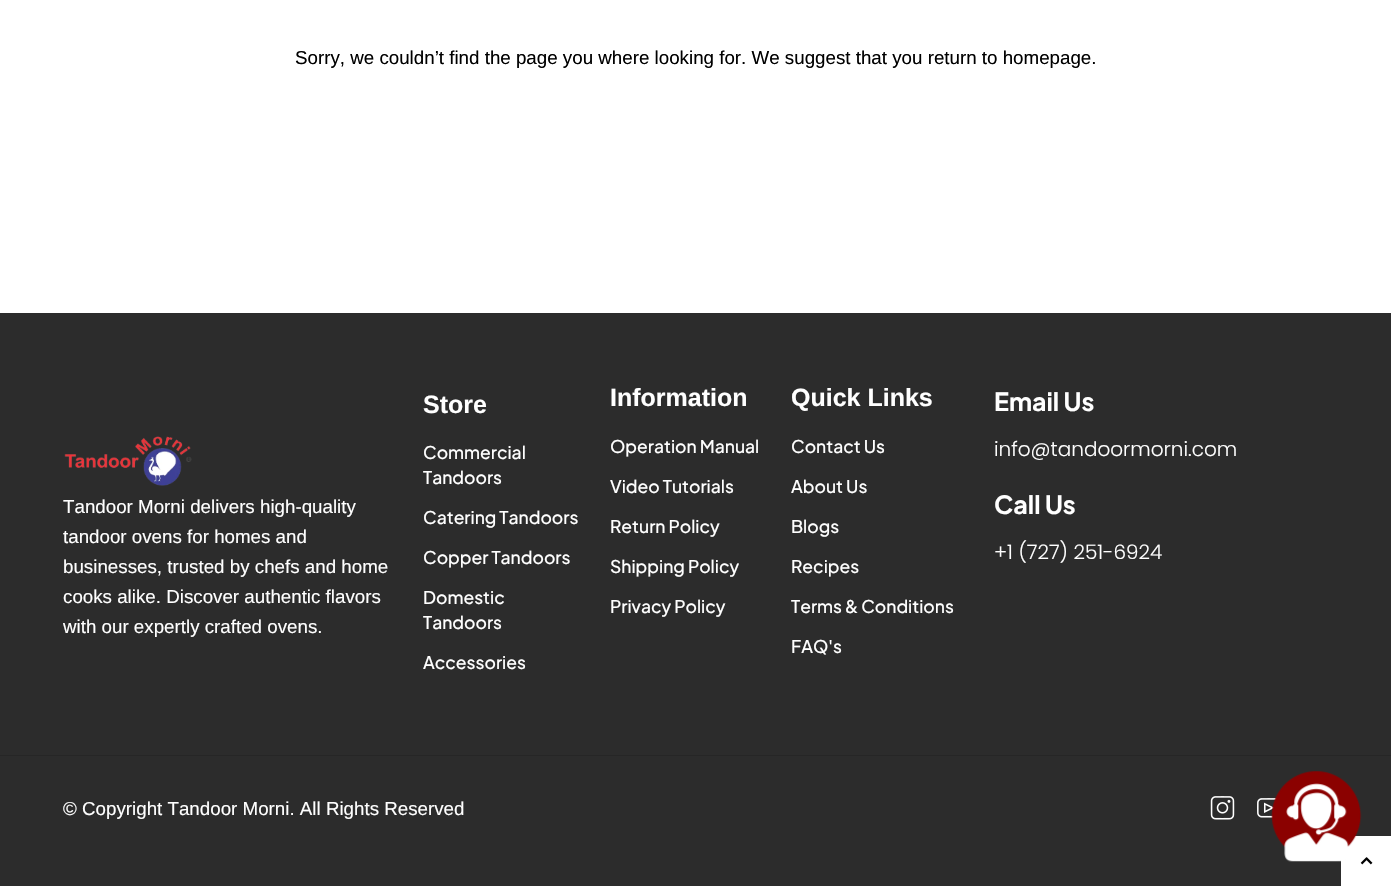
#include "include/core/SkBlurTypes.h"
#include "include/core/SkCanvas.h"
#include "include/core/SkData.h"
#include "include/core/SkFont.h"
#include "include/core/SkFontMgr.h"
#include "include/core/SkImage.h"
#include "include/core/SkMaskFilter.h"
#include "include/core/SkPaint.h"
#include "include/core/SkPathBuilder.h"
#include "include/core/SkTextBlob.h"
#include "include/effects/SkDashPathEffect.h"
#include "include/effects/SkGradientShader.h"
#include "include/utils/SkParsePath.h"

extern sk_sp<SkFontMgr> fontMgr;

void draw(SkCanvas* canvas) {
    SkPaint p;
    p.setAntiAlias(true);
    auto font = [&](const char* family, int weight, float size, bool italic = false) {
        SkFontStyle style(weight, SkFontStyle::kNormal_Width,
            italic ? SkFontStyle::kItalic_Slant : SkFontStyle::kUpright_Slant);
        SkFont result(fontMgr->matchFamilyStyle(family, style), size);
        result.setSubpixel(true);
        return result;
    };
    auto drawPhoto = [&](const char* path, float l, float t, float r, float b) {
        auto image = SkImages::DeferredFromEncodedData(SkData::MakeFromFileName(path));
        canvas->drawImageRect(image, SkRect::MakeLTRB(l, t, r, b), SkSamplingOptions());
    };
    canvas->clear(0xFFFFFFFF);
    auto font1 = font("Liberation Sans", 400, 18.75f);
    p.setColor(0xFF000000);
    canvas->drawString("Sorry, we couldn’t find the page you where looking for. We suggest that you return to homepage.", 295, 64, font1, p);
    p.setColor(0xFF2C2C2C);
    canvas->drawRect(SkRect::MakeLTRB(0, 313, 1391, 886), p);
    drawPhoto("media/1.png", 64, 436, 192, 486);
    p.setColor(0xFFFFFFFF);
    {
        const struct { const char* s; float x, y; } items[] = {
            {"Tandoor Morni delivers high-quality", 63, 513},
            {"tandoor ovens for homes and", 63, 543},
            {"businesses, trusted by chefs and home", 63, 573},
            {"cooks alike. Discover authentic flavors", 63, 603},
            {"with our expertly crafted ovens.", 63, 633},
        };
        for (auto [s, x, y] : items) {
            canvas->drawString(s, x, y, font1, p);
        }
    }
    auto font2 = font("Liberation Sans", 700, 25);
    canvas->drawString("Store", 423, 413, font2, p);
    auto font3 = font("Plus Jakarta Sans", 500, 17.5f);
    {
        const struct { const char* s; float x, y; } items[] = {
            {"Commercial", 423, 459},
            {"Tandoors", 423, 484},
            {"Catering Tandoors", 423, 524},
            {"Copper Tandoors", 423, 564},
            {"Domestic", 423, 604},
            {"Tandoors", 423, 629},
            {"Accessories", 423, 669},
        };
        for (auto [s, x, y] : items) {
            canvas->drawString(s, x, y, font3, p);
        }
    }
    canvas->drawString("Information", 610, 406, font2, p);
    {
        const struct { const char* s; float x, y; } items[] = {
            {"Operation Manual", 610, 453},
            {"Video Tutorials", 610, 493},
            {"Return Policy", 610, 533},
            {"Shipping Policy", 610, 573},
            {"Privacy Policy", 610, 613},
        };
        for (auto [s, x, y] : items) {
            canvas->drawString(s, x, y, font3, p);
        }
    }
    canvas->drawString("Quick Links", 791, 406, font2, p);
    {
        const struct { const char* s; float x, y; } items[] = {
            {"Contact Us", 791, 453},
            {"About Us", 791, 493},
            {"Blogs", 791, 533},
            {"Recipes", 791, 573},
            {"Terms & Conditions", 791, 613},
            {"FAQ's", 791, 653},
        };
        for (auto [s, x, y] : items) {
            canvas->drawString(s, x, y, font3, p);
        }
    }
    auto font4 = font("Plus Jakarta Sans", 700, 25);
    canvas->drawString("Email Us", 994, 411, font4, p);
    auto font5 = font("Poppins", 300, 20);
    canvas->drawString("info@tandoormorni.com", 994, 456, font5, p);
    canvas->drawString("Call Us", 994, 514, font4, p);
    canvas->drawString("+1 (727) 251-6924", 994, 559, font5, p);
    p.setColor(0xFF262626);
    canvas->drawRect(SkRect::MakeLTRB(0, 755, 1391, 756), p);
    p.setColor(0xFFFFFFFF);
    canvas->drawString("© Copyright Tandoor Morni. All Rights Reserved", 63, 815, font1, p);
    drawPhoto("media/2.png", 1210, 796, 1235, 820);
    drawPhoto("media/3.png", 1257, 798, 1277, 818);
    canvas->drawRect(SkRect::MakeLTRB(1341, 836, 1391, 886), p);
    drawPhoto("media/5.png", 1360, 857, 1373, 865);
    drawPhoto("media/4.png", 1271, 771, 1362, 862);
}
